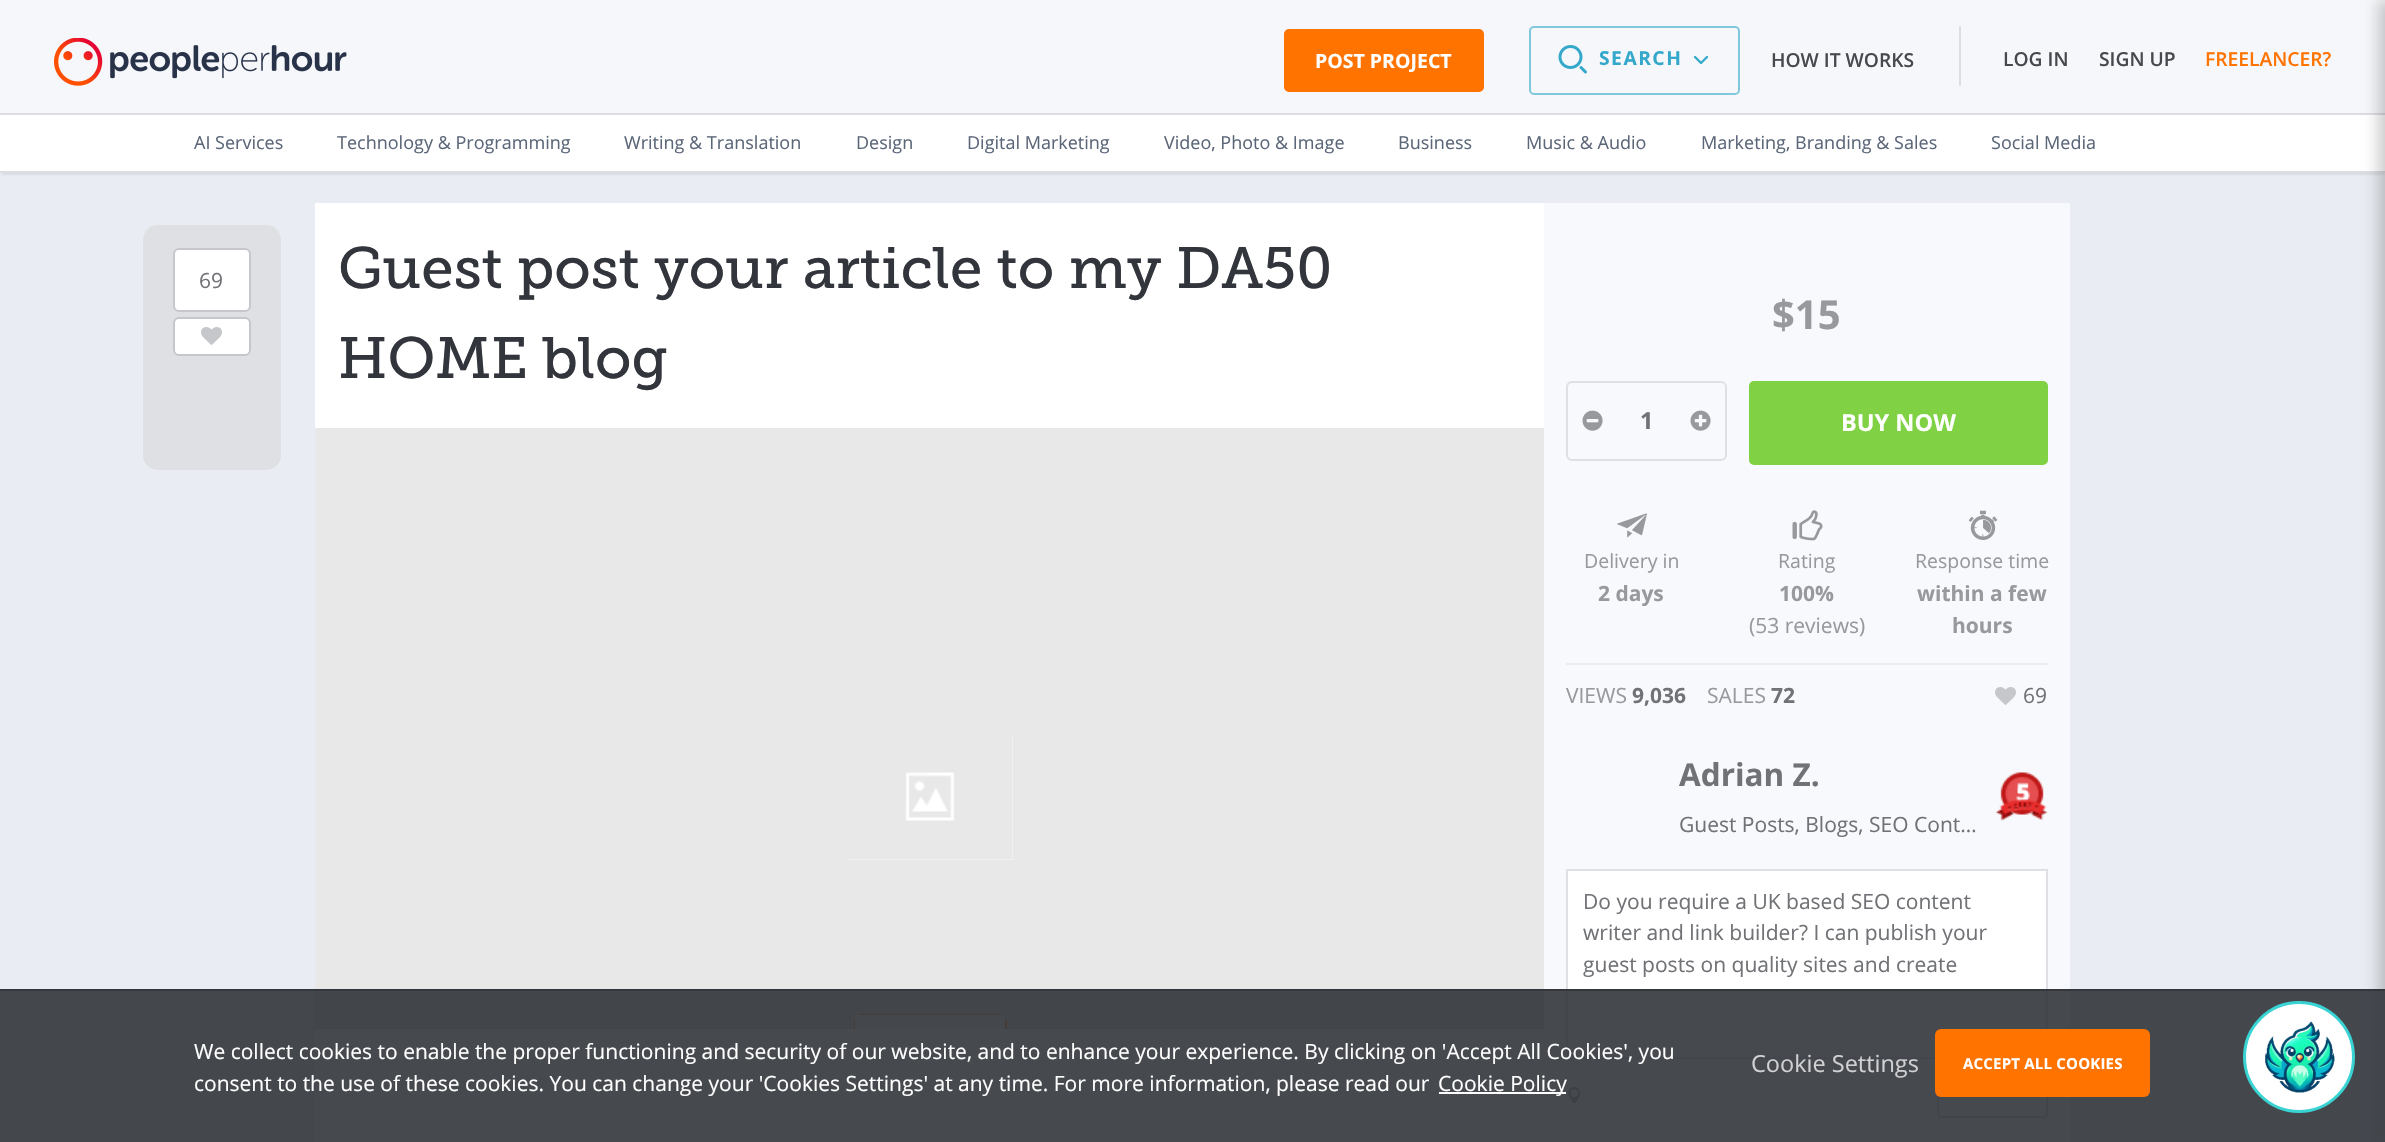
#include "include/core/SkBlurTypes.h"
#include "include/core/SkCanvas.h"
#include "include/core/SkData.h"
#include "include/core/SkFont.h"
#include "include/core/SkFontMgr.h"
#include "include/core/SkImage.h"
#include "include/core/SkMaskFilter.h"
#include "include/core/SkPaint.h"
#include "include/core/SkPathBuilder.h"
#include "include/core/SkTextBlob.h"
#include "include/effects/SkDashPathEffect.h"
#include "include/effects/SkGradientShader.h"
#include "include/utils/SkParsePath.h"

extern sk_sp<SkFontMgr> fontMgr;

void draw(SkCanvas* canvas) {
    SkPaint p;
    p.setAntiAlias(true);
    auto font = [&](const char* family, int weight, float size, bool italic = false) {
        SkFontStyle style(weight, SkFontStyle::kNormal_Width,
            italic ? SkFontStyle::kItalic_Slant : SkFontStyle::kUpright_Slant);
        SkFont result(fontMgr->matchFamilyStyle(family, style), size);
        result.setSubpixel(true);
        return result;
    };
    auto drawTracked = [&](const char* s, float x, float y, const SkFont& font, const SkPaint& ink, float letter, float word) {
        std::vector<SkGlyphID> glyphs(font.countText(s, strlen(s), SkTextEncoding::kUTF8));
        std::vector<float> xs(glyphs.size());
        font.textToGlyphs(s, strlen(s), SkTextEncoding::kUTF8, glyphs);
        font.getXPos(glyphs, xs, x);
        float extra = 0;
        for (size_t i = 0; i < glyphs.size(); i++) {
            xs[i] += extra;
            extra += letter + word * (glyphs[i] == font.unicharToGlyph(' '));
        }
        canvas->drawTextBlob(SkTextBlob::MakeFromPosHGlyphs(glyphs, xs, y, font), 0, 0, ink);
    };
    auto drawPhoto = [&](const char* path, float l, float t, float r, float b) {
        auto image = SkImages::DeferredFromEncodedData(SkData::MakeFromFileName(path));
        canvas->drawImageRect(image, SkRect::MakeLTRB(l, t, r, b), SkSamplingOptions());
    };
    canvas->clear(0xFFE9ECF2);
    p.setColor(0xFFF5F7FA);
    canvas->drawRect(SkRect::MakeLTRB(0, 0, 2385, 113), p);
    drawPhoto("media/1.png", 54, 38, 347, 86);
    p.setColor(0xFFFF7300);
    canvas->drawRoundRect(SkRect::MakeLTRB(1285, 30, 1483, 91), 4, 4, p);
    p.setStyle(SkPaint::kStroke_Style);
    p.setStrokeWidth(2);
    canvas->drawRoundRect(SkRect::MakeLTRB(1285, 30, 1483, 91), 4, 4, p);
    auto font1 = font("Open Sans", 700, 19.5f);
    p.setStyle(SkPaint::kFill_Style);
    p.setColor(0xFFFFFFFF);
    canvas->drawString("POST PROJECT", 1315, 68, font1, p);
    p.setStyle(SkPaint::kStroke_Style);
    p.setColor(0xFF81C8DD);
    canvas->drawRoundRect(SkRect::MakeLTRB(1530, 27, 1739, 94), 4, 4, p);
    drawPhoto("media/2.png", 1558, 45, 1587, 74);
    auto font2 = font("Open Sans", 700, 19.25f);
    p.setStyle(SkPaint::kFill_Style);
    p.setColor(0xFF34A8CA);
    drawTracked("SEARCH", 1599, 65, font2, p, 1.5f, 0);
    drawPhoto("media/3.png", 1693, 55, 1709, 65);
    auto font3 = font("Open Sans", 600, 19.25f);
    p.setColor(0xFF47494F);
    canvas->drawString("HOW IT WORKS", 1771, 67, font3, p);
    p.setColor(0xFFDDDEE1);
    canvas->drawRect(SkRect::MakeLTRB(1959, 26, 1961, 86), p);
    p.setColor(0xFF47494F);
    canvas->drawString("LOG IN", 2003, 66, font3, p);
    canvas->drawString("SIGN UP", 2099, 66, font3, p);
    p.setColor(0xFFFF7300);
    canvas->drawString("FREELANCER?", 2205, 66, font3, p);
    p.setColor(0x2632353B);
    p.setMaskFilter(SkMaskFilter::MakeBlur(kNormal_SkBlurStyle, 1.5f));
    canvas->drawRect(SkRect::MakeLTRB(2, 117, 2384, 174), p);
    p.setMaskFilter(nullptr);
    {
        const struct { float l, t, r, b; SkColor color; } items[] = {
            {0, 115, 2385, 171, 0xFFFFFFFF},
            {0, 113, 2385, 115, 0xFFDDDEE1},
            {0, 171, 2385, 173, 0xFFDDDEE1},
        };
        for (auto [l, t, r, b, color] : items) {
            p.setColor(color);
            canvas->drawRect(SkRect::MakeLTRB(l, t, r, b), p);
        }
    }
    auto font4 = font("Open Sans", 400, 18);
    p.setColor(0xFF5B6678);
    {
        const struct { const char* s; float x, y; } items[] = {
            {"AI Services", 194, 149},
            {"Technology & Programming", 337, 149},
            {"Writing & Translation", 624, 149},
            {"Design", 856, 149},
            {"Digital Marketing", 967, 149},
            {"Video, Photo & Image", 1164, 149},
            {"Business", 1398, 149},
            {"Music & Audio", 1526, 149},
            {"Marketing, Branding & Sales", 1701, 149},
            {"Social Media", 1991, 149},
        };
        for (auto [s, x, y] : items) {
            canvas->drawString(s, x, y, font4, p);
        }
    }
    p.setColor(0xFFFFFFFF);
    canvas->drawRect(SkRect::MakeLTRB(315, 203, 1544, 1142), p);
    p.setColor(0xFFDFE0E3);
    canvas->drawRoundRect(SkRect::MakeLTRB(143, 225, 281, 470), 15, 15, p);
    p.setColor(0xFFFFFFFF);
    canvas->drawRoundRect(SkRect::MakeLTRB(174, 249, 250, 311), 5, 5, p);
    p.setStyle(SkPaint::kStroke_Style);
    p.setColor(0xFFC6C7CA);
    canvas->drawRoundRect(SkRect::MakeLTRB(174, 249, 250, 311), 5, 5, p);
    auto font5 = font("Open Sans", 400, 21);
    p.setStyle(SkPaint::kFill_Style);
    p.setColor(0xFF707276);
    canvas->drawString("69", 199, 288, font5, p);
    p.setColor(0xFFFFFFFF);
    canvas->drawRoundRect(SkRect::MakeLTRB(174, 318, 250, 355), 5, 5, p);
    p.setStyle(SkPaint::kStroke_Style);
    p.setColor(0xFFC6C7CA);
    canvas->drawRoundRect(SkRect::MakeLTRB(174, 318, 250, 355), 5, 5, p);
    drawPhoto("media/4.png", 201, 327, 222, 345);
    p.setStyle(SkPaint::kFill_Style);
    p.setColor(0xFFE8E8E8);
    canvas->drawRect(SkRect::MakeLTRB(315, 428, 1544, 992), p);
    p.setColor(0xFFF9F9F9);
    canvas->drawRect(SkRect::MakeLTRB(848, 735, 1013, 860), p);
    drawPhoto("media/5.png", 848, 735, 1013, 860);
    p.setColor(0xFFD0D0D1);
    canvas->drawRect(SkRect::MakeLTRB(315, 992, 1544, 1029), p);
    canvas->save();
    canvas->clipRect(SkRect::MakeLTRB(432, 1014, 1427, 1029));
    p.setStyle(SkPaint::kStroke_Style);
    p.setColor(0xFFFF7300);
    canvas->drawRoundRect(SkRect::MakeLTRB(855, 1015, 1006, 1121), 7, 7, p);
    canvas->restore();
    p.setStyle(SkPaint::kFill_Style);
    p.setColor(0xFFE8E8E8);
    canvas->drawRect(SkRect::MakeLTRB(855, 1015, 1005, 1029), p);
    auto font6 = font("Museo Slab", 400, 58.25f);
    p.setColor(0xFF32353B);
    canvas->drawString("Guest post your article to my DA50", 338, 288, font6, p);
    canvas->drawString("HOME blog", 338, 378, font6, p);
    p.setColor(0xFFF8F9FC);
    canvas->drawRect(SkRect::MakeLTRB(1544, 203, 2070, 1142), p);
    auto font7 = font("Open Sans", 700, 40);
    p.setColor(0xFF98999C);
    canvas->drawString("$15", 1772, 329, font7, p);
    p.setStyle(SkPaint::kStroke_Style);
    p.setColor(0xFFDFE0E3);
    canvas->drawRoundRect(SkRect::MakeLTRB(1567, 382, 1726, 460), 5, 5, p);
    drawPhoto("media/6.png", 1582, 410, 1603, 431);
    auto font8 = font("Open Sans", 700, 23.5f);
    p.setStyle(SkPaint::kFill_Style);
    p.setColor(0xFF707276);
    canvas->drawString("1", 1640, 429, font8, p);
    drawPhoto("media/7.png", 1690, 410, 1711, 431);
    p.setColor(0xFF80D144);
    canvas->drawRoundRect(SkRect::MakeLTRB(1750, 382, 2047, 464), 4, 4, p);
    p.setStyle(SkPaint::kStroke_Style);
    canvas->drawRoundRect(SkRect::MakeLTRB(1750, 382, 2047, 464), 4, 4, p);
    p.setStyle(SkPaint::kFill_Style);
    p.setColor(0xFFFFFFFF);
    canvas->drawString("BUY NOW", 1841, 431, font8, p);
    drawPhoto("media/8.png", 1617, 513, 1647, 538);
    auto font9 = font("Open Sans", 400, 19.5f);
    p.setColor(0xFF98999C);
    canvas->drawString("Delivery in", 1584, 568, font9, p);
    auto font10 = font("Open Sans", 700, 21);
    canvas->drawString("2 days", 1598, 601, font10, p);
    drawPhoto("media/9.png", 1792, 510, 1823, 541);
    canvas->drawString("Rating", 1778, 568, font9, p);
    canvas->drawString("100%", 1779, 601, font10, p);
    canvas->drawString("(53 reviews)", 1749, 633, font5, p);
    drawPhoto("media/10.png", 1968, 510, 1998, 540);
    canvas->drawString("Response time", 1915, 568, font9, p);
    canvas->drawString("within a few", 1917, 601, font10, p);
    canvas->drawString("hours", 1952, 633, font10, p);
    p.setColor(0xFFECEDEF);
    canvas->drawRect(SkRect::MakeLTRB(1566, 663, 2048, 665), p);
    p.setColor(0xFF98999C);
    canvas->drawString("VIEWS", 1566, 703, font5, p);
    p.setColor(0xFF707276);
    canvas->drawString("9,036", 1632, 703, font10, p);
    p.setColor(0xFF98999C);
    canvas->drawString("SALES", 1707, 703, font5, p);
    p.setColor(0xFF707276);
    canvas->drawString("72", 1771, 703, font10, p);
    drawPhoto("media/11.png", 1995, 687, 2016, 705);
    canvas->drawString("69", 2023, 703, font5, p);
    auto font11 = font("Open Sans", 700, 31.5f);
    canvas->drawString("Adrian Z.", 1679, 786, font11, p);
    canvas->drawString("Guest Posts, Blogs, SEO Cont…", 1679, 832, font5, p);
    drawPhoto("media/12.png", 1996, 772, 2048, 821);
    p.setColor(0xFFFFFFFF);
    canvas->drawRect(SkRect::MakeLTRB(1567, 870, 2047, 1058), p);
    p.setStyle(SkPaint::kStroke_Style);
    p.setColor(0xFFDFE0E3);
    canvas->drawRect(SkRect::MakeLTRB(1567, 870, 2047, 1058), p);
    p.setStyle(SkPaint::kFill_Style);
    p.setColor(0xFF707276);
    {
        const struct { const char* s; float x, y; } items[] = {
            {"Do you require a UK based SEO content", 1583, 909},
            {"writer and link builder? I can publish your", 1583, 940},
            {"guest posts on quality sites and create", 1583, 972},
        };
        for (auto [s, x, y] : items) {
            canvas->drawString(s, x, y, font5, p);
        }
    }
    drawPhoto("media/13.png", 1568, 1087, 1581, 1104);
    p.setColor(0xFFFFFFFF);
    canvas->drawRoundRect(SkRect::MakeLTRB(1938, 1075, 2047, 1117), 4, 4, p);
    p.setStyle(SkPaint::kStroke_Style);
    p.setColor(0xFFC6C7CA);
    canvas->drawRoundRect(SkRect::MakeLTRB(1938, 1075, 2047, 1117), 4, 4, p);
    p.setStyle(SkPaint::kFill_Style);
    p.setColor(0x33000000);
    p.setMaskFilter(SkMaskFilter::MakeBlur(kNormal_SkBlurStyle, 7.5f));
    canvas->drawRect(SkRect::MakeLTRB(2378, 0, 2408, 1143), p);
    p.setMaskFilter(nullptr);
    p.setColor(0xE632353B);
    canvas->drawRect(SkRect::MakeLTRB(0, 989, 2385, 1142), p);
    canvas->drawRect(SkRect::MakeLTRB(0, 989, 2385, 991), p);
    p.setColor(0xFFFFFFFF);
    canvas->drawString("We collect cookies to enable the proper functioning and security of our website, and to enhance your experience. By clicking on 'Accept All Cookies', you", 194, 1059, font5, p);
    canvas->drawString("consent to the use of these cookies. You can change your 'Cookies Settings' at any time. For more information, please read our", 194, 1091, font5, p);
    canvas->drawRect(SkRect::MakeLTRB(1439, 1092, 1566, 1094), p);
    canvas->drawString("Cookie Policy", 1438, 1091, font5, p);
    auto font12 = font("Open Sans", 400, 23.5f);
    p.setColor(0xFFD1D1D3);
    canvas->drawString("Cookie Settings", 1751, 1072, font12, p);
    p.setColor(0xFFFF7300);
    canvas->drawRoundRect(SkRect::MakeLTRB(1935, 1029, 2150, 1097), 6, 6, p);
    auto font13 = font("Open Sans", 700, 15);
    p.setColor(0xFFFFFFFF);
    drawTracked("ACCEPT ALL COOKIES", 1963, 1069, font13, p, 0.2f, 0);
    canvas->drawCircle(2299, 1057, 54.5f, p);
    p.setStyle(SkPaint::kStroke_Style);
    p.setStrokeWidth(3);
    p.setColor(0xFF38D3D2);
    canvas->drawCircle(2299, 1057, 54.5f, p);
    drawPhoto("media/14.png", 2265, 1021, 2335, 1093);
}
